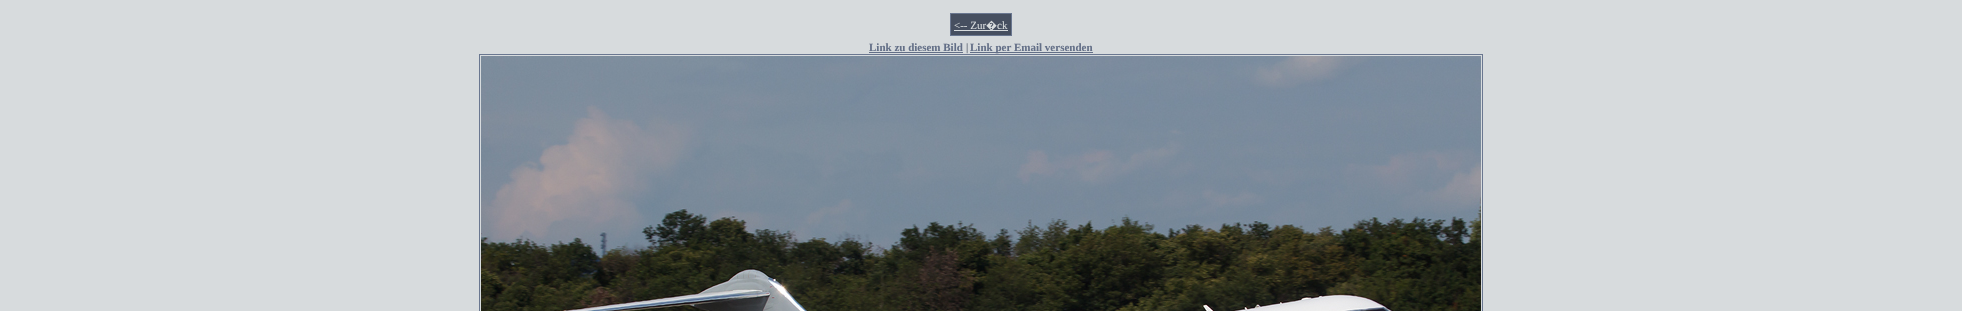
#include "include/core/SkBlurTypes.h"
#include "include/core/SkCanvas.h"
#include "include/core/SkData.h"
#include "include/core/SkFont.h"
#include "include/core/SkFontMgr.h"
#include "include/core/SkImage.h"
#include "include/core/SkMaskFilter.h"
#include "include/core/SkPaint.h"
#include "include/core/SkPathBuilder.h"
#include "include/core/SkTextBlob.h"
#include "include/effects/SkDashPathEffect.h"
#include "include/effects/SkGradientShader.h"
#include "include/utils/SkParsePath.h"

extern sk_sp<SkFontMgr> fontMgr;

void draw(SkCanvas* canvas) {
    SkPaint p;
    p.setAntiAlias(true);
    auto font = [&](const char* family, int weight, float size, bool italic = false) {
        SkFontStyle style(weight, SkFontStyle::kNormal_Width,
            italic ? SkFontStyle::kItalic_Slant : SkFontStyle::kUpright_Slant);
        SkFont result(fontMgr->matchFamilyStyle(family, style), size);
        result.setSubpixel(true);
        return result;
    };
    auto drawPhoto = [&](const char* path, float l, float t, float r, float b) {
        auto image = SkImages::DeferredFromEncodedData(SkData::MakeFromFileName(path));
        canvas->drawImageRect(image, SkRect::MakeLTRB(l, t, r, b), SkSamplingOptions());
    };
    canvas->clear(0xFFD7DBDD);
    p.setColor(0xFF464F60);
    canvas->drawRect(SkRect::MakeLTRB(950.5f, 13.5f, 1011.5f, 35.5f), p);
    p.setStyle(SkPaint::kStroke_Style);
    p.setStrokeWidth(1);
    p.setColor(0xFF6A7790);
    canvas->drawRect(SkRect::MakeLTRB(950.5f, 13.5f, 1011.5f, 35.5f), p);
    auto font1 = font("Liberation Serif", 400, 11);
    p.setStyle(SkPaint::kFill_Style);
    p.setColor(0xFFD7DBDD);
    canvas->drawString("<-- Zur", 954, 29, font1, p);
    canvas->drawRect(SkRect::MakeLTRB(954, 30, 1008, 31), p);
    auto font2 = font("Noto Sans", 400, 11);
    canvas->drawString("�", 986, 29, font2, p);
    canvas->drawString("ck", 997, 29, font1, p);
    auto font3 = font("Liberation Serif", 700, 11);
    p.setColor(0xFF636F87);
    canvas->drawString("Link zu diesem Bild", 869, 51, font3, p);
    canvas->drawRect(SkRect::MakeLTRB(869, 52, 963, 53), p);
    p.setColor(0xFF464F60);
    canvas->drawString("|", 966, 51, font1, p);
    p.setColor(0xFF636F87);
    canvas->drawRect(SkRect::MakeLTRB(970, 52, 1093, 53), p);
    canvas->drawString("Link per Email versenden", 970, 51, font3, p);
    p.setStyle(SkPaint::kStroke_Style);
    p.setColor(0xFF6A7790);
    canvas->drawRect(SkRect::MakeLTRB(479.5f, 54.5f, 1482.5f, 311.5f), p);
    drawPhoto("media/1.png", 481, 56, 1481, 311);
}
